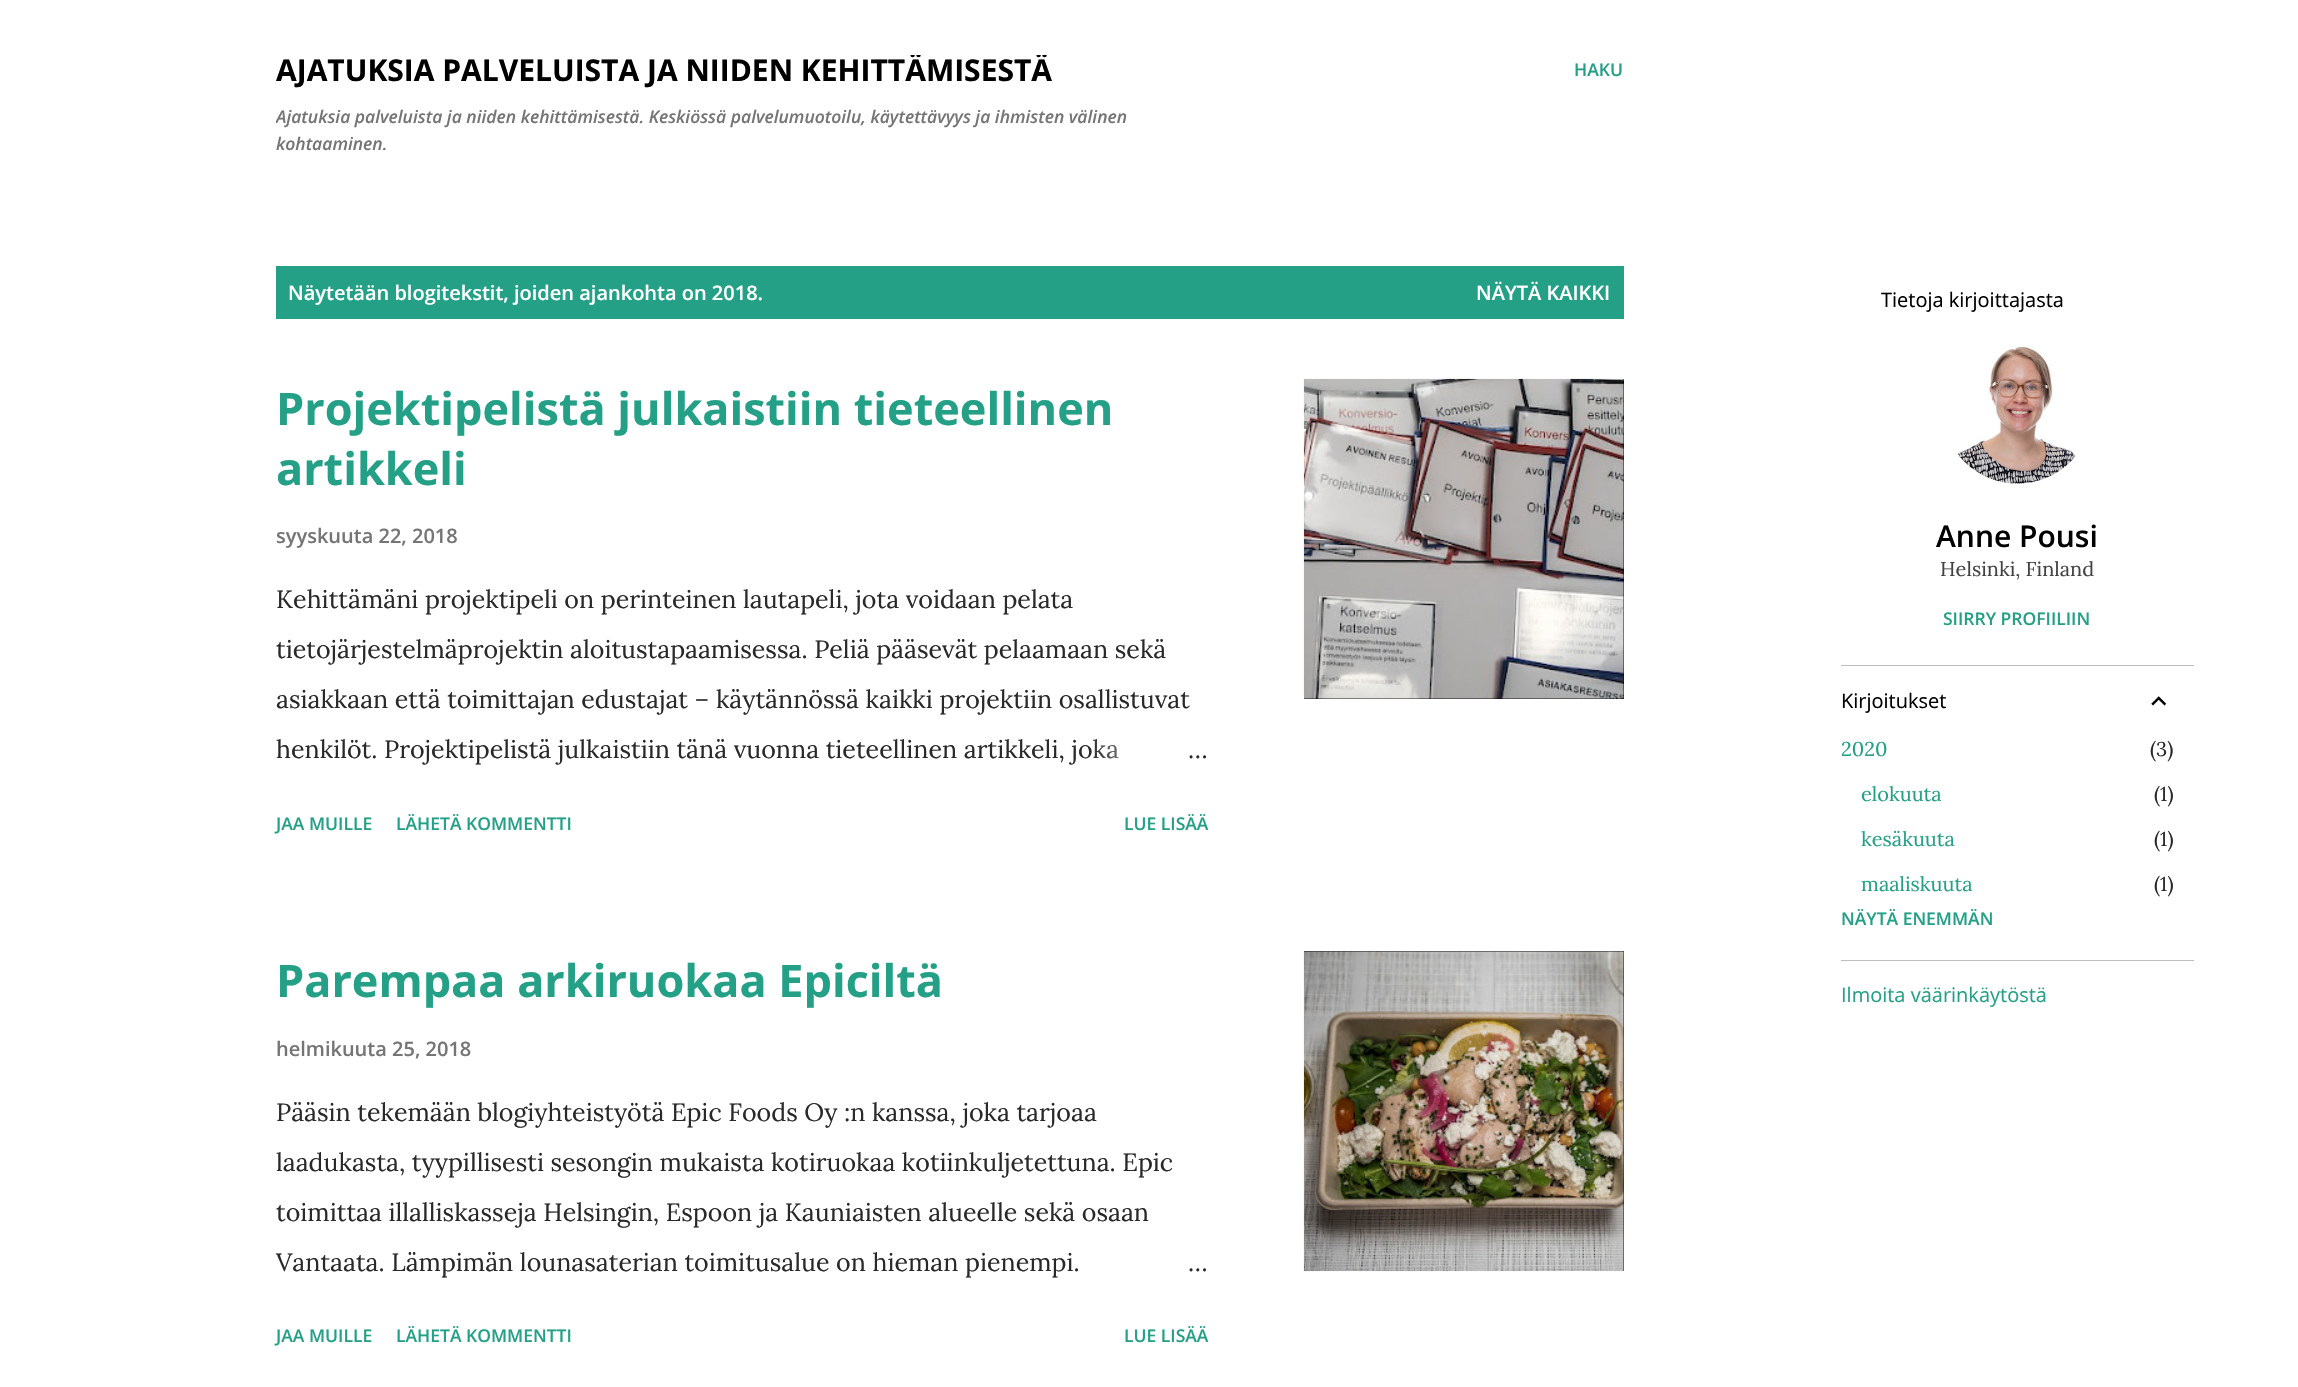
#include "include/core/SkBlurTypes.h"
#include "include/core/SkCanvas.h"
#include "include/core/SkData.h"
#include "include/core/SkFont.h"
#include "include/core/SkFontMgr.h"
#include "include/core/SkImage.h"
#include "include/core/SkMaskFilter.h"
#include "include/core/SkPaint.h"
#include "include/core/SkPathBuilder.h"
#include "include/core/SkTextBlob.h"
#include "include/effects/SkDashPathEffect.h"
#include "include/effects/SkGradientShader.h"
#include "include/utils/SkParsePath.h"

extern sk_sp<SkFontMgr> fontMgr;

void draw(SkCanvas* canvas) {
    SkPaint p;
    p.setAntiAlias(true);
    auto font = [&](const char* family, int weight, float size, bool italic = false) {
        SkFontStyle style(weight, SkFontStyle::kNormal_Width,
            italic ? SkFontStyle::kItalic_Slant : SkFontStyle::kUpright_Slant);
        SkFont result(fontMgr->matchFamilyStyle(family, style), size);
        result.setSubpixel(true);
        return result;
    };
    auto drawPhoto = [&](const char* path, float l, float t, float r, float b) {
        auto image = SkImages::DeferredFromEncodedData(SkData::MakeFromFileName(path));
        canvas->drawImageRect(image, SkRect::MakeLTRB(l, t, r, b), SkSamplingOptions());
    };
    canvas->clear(0xFFFFFFFF);
    canvas->save();
    canvas->clipRect(SkRect::MakeLTRB(276, 55, 1624, 176));
    auto font1 = font("Open Sans", 700, 30);
    p.setColor(0xFF000000);
    canvas->drawString("AJATUKSIA PALVELUISTA JA NIIDEN KEHITTÄMISESTÄ", 276, 81, font1, p);
    auto font2 = font("Open Sans", 600, 17.5f, true);
    p.setColor(0xFF757575);
    canvas->drawString("Ajatuksia palveluista ja niiden kehittämisestä. Keskiössä palvelumuotoilu, käytettävyys ja ihmisten välinen", 276, 123, font2, p);
    canvas->restore();
    canvas->drawString("kohtaaminen.", 276, 150, font2, p);
    auto font3 = font("Open Sans", 600, 17.5f);
    p.setColor(0xFF24A086);
    canvas->drawString("HAKU", 1574, 76, font3, p);
    canvas->drawRect(SkRect::MakeLTRB(276, 266, 1624, 319), p);
    auto font4 = font("Open Sans", 600, 20);
    p.setColor(0xFFFFFFFF);
    canvas->drawString("Näytetään blogitekstit, joiden ajankohta on 2018.", 288, 300, font4, p);
    canvas->drawString("NÄYTÄ KAIKKI", 1476, 300, font4, p);
    auto font5 = font("Open Sans", 700, 45);
    p.setColor(0xFF24A086);
    canvas->drawString("Projektipelistä julkaistiin tieteellinen", 276, 425, font5, p);
    canvas->drawString("artikkeli", 276, 485, font5, p);
    p.setColor(0xFF757575);
    canvas->drawString("syyskuuta 22, 2018", 276, 543, font4, p);
    auto font6 = font("Lora", 400, 25);
    p.setColor(0xFF292929);
    {
        const struct { const char* s; float x, y; } items[] = {
            {"Kehittämäni projektipeli on perinteinen lautapeli, jota voidaan pelata", 276, 608},
            {"tietojärjestelmäprojektin aloitustapaamisessa. Peliä pääsevät pelaamaan sekä", 276, 658},
            {"asiakkaan että toimittajan edustajat – käytännössä kaikki projektiin osallistuvat", 276, 708},
            {"henkilöt. Projektipelistä julkaistiin tänä vuonna tieteellinen artikkeli, joka", 276, 758},
        };
        for (auto [s, x, y] : items) {
            canvas->drawString(s, x, y, font6, p);
        }
    }
    {
        const SkColor colors[] = {0xFFFFFFFF, 0xFFFFFFFF, 0x00FFFFFF};
        const float stops[] = {0, 0.2f, 1};
        const SkPoint ends[] = {{1209, 750}, {1089, 750}};
        p.setShader(SkGradientShader::MakeLinear(ends, colors, stops, 3, SkTileMode::kClamp));
        p.setAlpha(255);
    }
    canvas->drawRect(SkRect::MakeLTRB(1093, 739, 1118, 759), p);
    p.setShader(nullptr);
    p.setColor(0xFF292929);
    canvas->drawString("…", 1188, 758, font6, p);
    p.setColor(0xFF24A086);
    {
        const struct { const char* s; float x, y; } items[] = {
            {"JAA MUILLE", 276, 830},
            {"LÄHETÄ KOMMENTTI", 396, 830},
            {"LUE LISÄÄ", 1124, 830},
        };
        for (auto [s, x, y] : items) {
            canvas->drawString(s, x, y, font3, p);
        }
    }
    p.setColor(0xFF000000);
    canvas->drawRect(SkRect::MakeLTRB(1304, 379, 1624, 699), p);
    drawPhoto("media/1.png", 1303, 378, 1624, 699);
    p.setColor(0xFF24A086);
    canvas->drawString("Parempaa arkiruokaa Epiciltä", 276, 997, font5, p);
    p.setColor(0xFF757575);
    canvas->drawString("helmikuuta 25, 2018", 276, 1056, font4, p);
    p.setColor(0xFF292929);
    {
        const struct { const char* s; float x, y; } items[] = {
            {"Pääsin tekemään blogiyhteistyötä Epic Foods Oy :n kanssa, joka tarjoaa", 276, 1121},
            {"laadukasta, tyypillisesti sesongin mukaista kotiruokaa kotiinkuljetettuna. Epic", 276, 1171},
            {"toimittaa illalliskasseja Helsingin, Espoon ja Kauniaisten alueelle sekä osaan", 276, 1221},
            {"Vantaata. Lämpimän lounasaterian toimitusalue on hieman pienempi.", 276, 1271},
            {"…", 1188, 1271},
        };
        for (auto [s, x, y] : items) {
            canvas->drawString(s, x, y, font6, p);
        }
    }
    p.setColor(0xFF24A086);
    {
        const struct { const char* s; float x, y; } items[] = {
            {"JAA MUILLE", 276, 1342},
            {"LÄHETÄ KOMMENTTI", 396, 1342},
            {"LUE LISÄÄ", 1124, 1342},
        };
        for (auto [s, x, y] : items) {
            canvas->drawString(s, x, y, font3, p);
        }
    }
    p.setColor(0xFF000000);
    canvas->drawRect(SkRect::MakeLTRB(1304, 951, 1624, 1271), p);
    drawPhoto("media/2.png", 1303, 951, 1624, 1272);
    auto font7 = font("Open Sans", 400, 20);
    canvas->drawString("Tietoja kirjoittajasta", 1881, 307, font7, p);
    drawPhoto("media/3.png", 1957, 345, 2077, 484);
    auto font8 = font("Open Sans", 600, 30);
    canvas->drawString("Anne Pousi", 1936, 547, font8, p);
    auto font9 = font("Lora", 400, 20);
    p.setColor(0xFF424242);
    canvas->drawString("Helsinki, Finland", 1940, 576, font9, p);
    p.setColor(0xFF24A086);
    canvas->drawString("SIIRRY PROFIILIIN", 1943, 625, font3, p);
    p.setColor(0xFFBDBDBD);
    canvas->drawRect(SkRect::MakeLTRB(1841, 665, 2194, 666), p);
    p.setColor(0xFF000000);
    canvas->drawString("Kirjoitukset", 1841, 708, font7, p);
    drawPhoto("media/4.png", 2151, 696, 2167, 706);
    p.setColor(0xFF24A086);
    canvas->drawString("2020", 1841, 756, font9, p);
    p.setColor(0xFF292929);
    canvas->drawString("(3)", 2150, 756, font9, p);
    p.setColor(0xFF24A086);
    canvas->drawString("elokuuta", 1861, 801, font9, p);
    p.setColor(0xFF292929);
    canvas->drawString("(1)", 2154, 801, font9, p);
    p.setColor(0xFF24A086);
    canvas->drawString("kesäkuuta", 1861, 846, font9, p);
    p.setColor(0xFF292929);
    canvas->drawString("(1)", 2154, 846, font9, p);
    p.setColor(0xFF24A086);
    canvas->drawString("maaliskuuta", 1861, 891, font9, p);
    p.setColor(0xFF292929);
    canvas->drawString("(1)", 2154, 891, font9, p);
    p.setColor(0xFF24A086);
    canvas->drawString("NÄYTÄ ENEMMÄN", 1841, 925, font3, p);
    p.setColor(0xFFBDBDBD);
    canvas->drawRect(SkRect::MakeLTRB(1841, 960, 2194, 961), p);
    p.setColor(0xFF24A086);
    canvas->drawString("Ilmoita väärinkäytöstä", 1841, 1002, font7, p);
}
